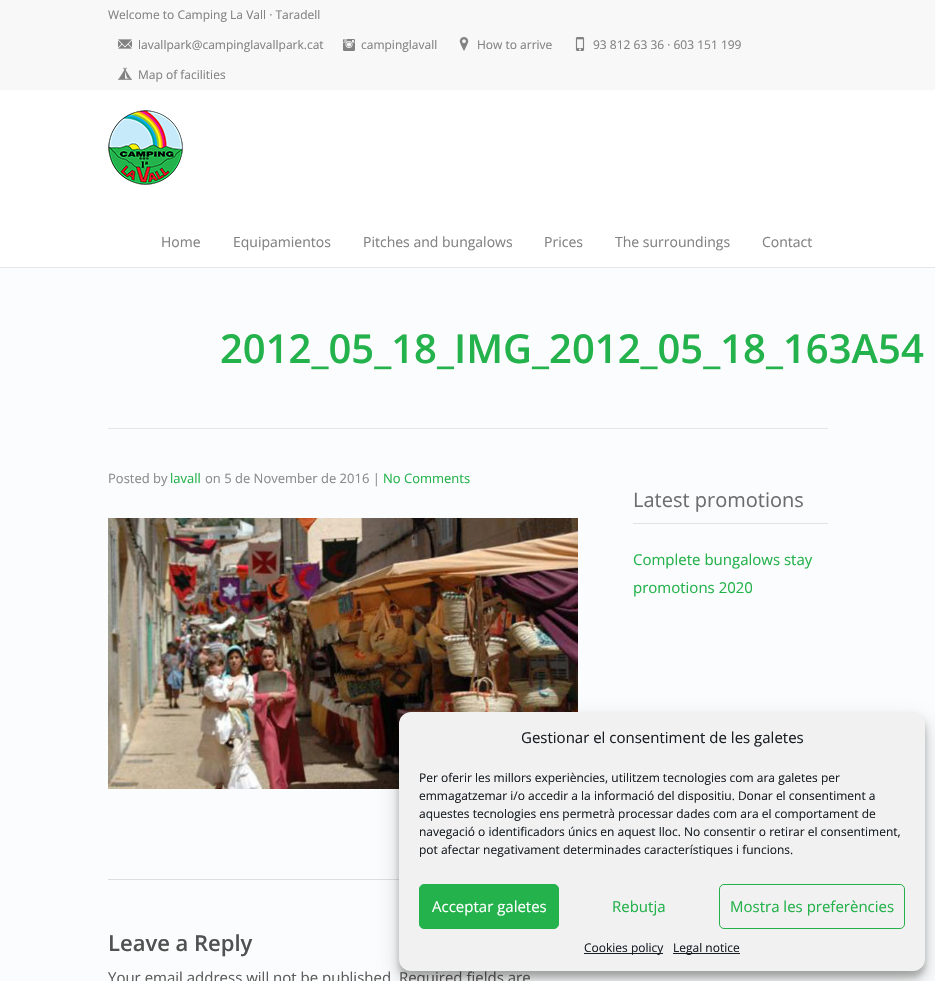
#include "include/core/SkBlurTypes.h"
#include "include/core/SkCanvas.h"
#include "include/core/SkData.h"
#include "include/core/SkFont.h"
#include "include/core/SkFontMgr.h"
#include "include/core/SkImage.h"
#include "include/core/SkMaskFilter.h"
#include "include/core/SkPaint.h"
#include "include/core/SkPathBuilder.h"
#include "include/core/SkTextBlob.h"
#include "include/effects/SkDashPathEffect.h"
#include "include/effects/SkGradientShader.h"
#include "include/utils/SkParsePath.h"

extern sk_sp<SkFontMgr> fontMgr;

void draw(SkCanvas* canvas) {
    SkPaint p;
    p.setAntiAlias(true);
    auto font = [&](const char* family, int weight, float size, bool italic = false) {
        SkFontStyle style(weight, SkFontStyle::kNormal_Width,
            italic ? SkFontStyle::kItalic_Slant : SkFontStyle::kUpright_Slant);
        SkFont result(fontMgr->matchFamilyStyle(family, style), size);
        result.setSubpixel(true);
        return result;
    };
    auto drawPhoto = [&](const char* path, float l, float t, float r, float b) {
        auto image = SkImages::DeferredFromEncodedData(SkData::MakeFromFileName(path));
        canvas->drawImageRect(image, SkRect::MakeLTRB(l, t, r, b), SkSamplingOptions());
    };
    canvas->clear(0xFFFBFCFD);
    {
        const struct { float l, t, r, b; SkColor color; } items[] = {
            {0, 90, 935, 267, 0xFFFFFFFF},
            {0, 267, 935, 268, 0xFFE7E7E7},
            {0, 0, 935, 90, 0xFFF8F8F8},
        };
        for (auto [l, t, r, b, color] : items) {
            p.setColor(color);
            canvas->drawRect(SkRect::MakeLTRB(l, t, r, b), p);
        }
    }
    auto font1 = font("Open Sans", 400, 12);
    p.setColor(0xFF828282);
    canvas->drawString("Welcome to Camping La Vall · Taradell", 108, 19, font1, p);
    drawPhoto("media/1.png", 118, 39, 132, 49);
    canvas->drawString("lavallpark@campinglavallpark.cat", 138, 49, font1, p);
    drawPhoto("media/2.png", 343, 39, 355, 51);
    canvas->drawString("campinglavall", 361, 49, font1, p);
    drawPhoto("media/3.png", 459, 37, 469, 51);
    canvas->drawString("How to arrive", 477, 49, font1, p);
    drawPhoto("media/4.png", 575, 37, 585, 51);
    canvas->drawString("93 812 63 36 · 603 151 199", 593, 49, font1, p);
    drawPhoto("media/5.png", 118, 67, 132, 80);
    canvas->drawString("Map of facilities", 138, 79, font1, p);
    drawPhoto("media/6.png", 108, 110, 183, 185);
    auto font2 = font("Open Sans", 400, 14);
    {
        const struct { const char* s; float x, y; } items[] = {
            {"Home", 161, 247},
            {"Equipamientos", 233, 247},
            {"Pitches and bungalows", 363, 247},
            {"Prices", 544, 247},
            {"The surroundings", 615, 247},
            {"Contact", 762, 247},
        };
        for (auto [s, x, y] : items) {
            canvas->drawString(s, x, y, font2, p);
        }
    }
    p.setColor(0xFFE6E6E6);
    canvas->drawRect(SkRect::MakeLTRB(108, 428, 828, 429), p);
    auto font3 = font("Open Sans", 600, 40);
    p.setColor(0xFF23B24B);
    canvas->drawString("2012_05_18_IMG_2012_05_18_163A54", 220, 363, font3, p);
    p.setColor(0xFFDEDEDE);
    canvas->drawRect(SkRect::MakeLTRB(108, 879, 399, 880), p);
    auto font4 = font("Open Sans", 400, 13);
    p.setColor(0xFF8B8B8B);
    canvas->drawString("Posted by", 108, 483, font4, p);
    p.setColor(0xFF23B24B);
    canvas->drawString("lavall", 170, 483, font4, p);
    p.setColor(0xFF8B8B8B);
    canvas->drawString("on 5 de November de 2016 |", 205, 483, font4, p);
    p.setColor(0xFF23B24B);
    canvas->drawString("No Comments", 383, 483, font4, p);
    drawPhoto("media/7.png", 108, 518, 578, 789);
    auto font5 = font("Open Sans", 600, 22);
    p.setColor(0xFF515151);
    canvas->drawString("Leave a Reply", 108, 951, font5, p);
    auto font6 = font("Open Sans", 400, 15);
    p.setColor(0xFF5C5C5C);
    canvas->drawString("Your email address will not be published. Required fields are", 108, 983, font6, p);
    p.setColor(0xFFE2E2E2);
    canvas->drawRect(SkRect::MakeLTRB(633, 523, 828, 524), p);
    auto font7 = font("Open Sans", 400, 20);
    p.setColor(0xFF6D6D6D);
    canvas->drawString("Latest promotions", 633, 507, font7, p);
    p.setColor(0xFF23B24B);
    canvas->drawString("Complete bungalows stay", 633, 565, font6, p);
    canvas->drawString("promotions 2020", 633, 593, font6, p);
    p.setColor(0x3B000000);
    p.setMaskFilter(SkMaskFilter::MakeBlur(kNormal_SkBlurStyle, 3));
    canvas->drawRoundRect(SkRect::MakeLTRB(399, 718, 925, 977), 12, 12, p);
    p.setMaskFilter(nullptr);
    p.setColor(0x30000000);
    p.setMaskFilter(SkMaskFilter::MakeBlur(kNormal_SkBlurStyle, 10));
    canvas->drawRoundRect(SkRect::MakeLTRB(399, 722, 925, 981), 12, 12, p);
    p.setMaskFilter(nullptr);
    p.setColor(0xFFF1F1F1);
    canvas->drawRoundRect(SkRect::MakeLTRB(399, 712, 925, 971), 12, 12, p);
    p.setColor(0xFF191E23);
    canvas->drawString("Gestionar el consentiment de les galetes", 521, 743, font6, p);
    {
        const struct { const char* s; float x, y; } items[] = {
            {"Per oferir les millors experiències, utilitzem tecnologies com ara galetes per", 419, 782},
            {"emmagatzemar i/o accedir a la informació del dispositiu. Donar el consentiment a", 419, 800},
            {"aquestes tecnologies ens permetrà processar dades com ara el comportament de", 419, 818},
            {"navegació o identificadors únics en aquest lloc. No consentir o retirar el consentiment,", 419, 836},
            {"pot afectar negativament determinades característiques i funcions.", 419, 854},
        };
        for (auto [s, x, y] : items) {
            canvas->drawString(s, x, y, font1, p);
        }
    }
    p.setColor(0xFF23B24B);
    canvas->drawRoundRect(SkRect::MakeLTRB(419.5f, 884.5f, 558.5f, 928.5f), 4.5f, 4.5f, p);
    p.setStyle(SkPaint::kStroke_Style);
    p.setStrokeWidth(1);
    canvas->drawRoundRect(SkRect::MakeLTRB(419.5f, 884.5f, 558.5f, 928.5f), 4.5f, 4.5f, p);
    p.setStyle(SkPaint::kFill_Style);
    p.setColor(0xFFFFFFFF);
    canvas->drawString("Acceptar galetes", 432, 912, font6, p);
    p.setColor(0xFF23B24B);
    canvas->drawString("Rebutja", 612, 912, font6, p);
    p.setStyle(SkPaint::kStroke_Style);
    canvas->drawRoundRect(SkRect::MakeLTRB(719.5f, 884.5f, 904.5f, 928.5f), 4.5f, 4.5f, p);
    p.setStyle(SkPaint::kFill_Style);
    canvas->drawString("Mostra les preferències", 730, 912, font6, p);
    p.setColor(0xFF191E23);
    canvas->drawRect(SkRect::MakeLTRB(584, 953, 663, 954), p);
    canvas->drawString("Cookies policy", 584, 952, font1, p);
    canvas->drawRect(SkRect::MakeLTRB(673, 953, 740, 954), p);
    canvas->drawString("Legal notice", 673, 952, font1, p);
}
